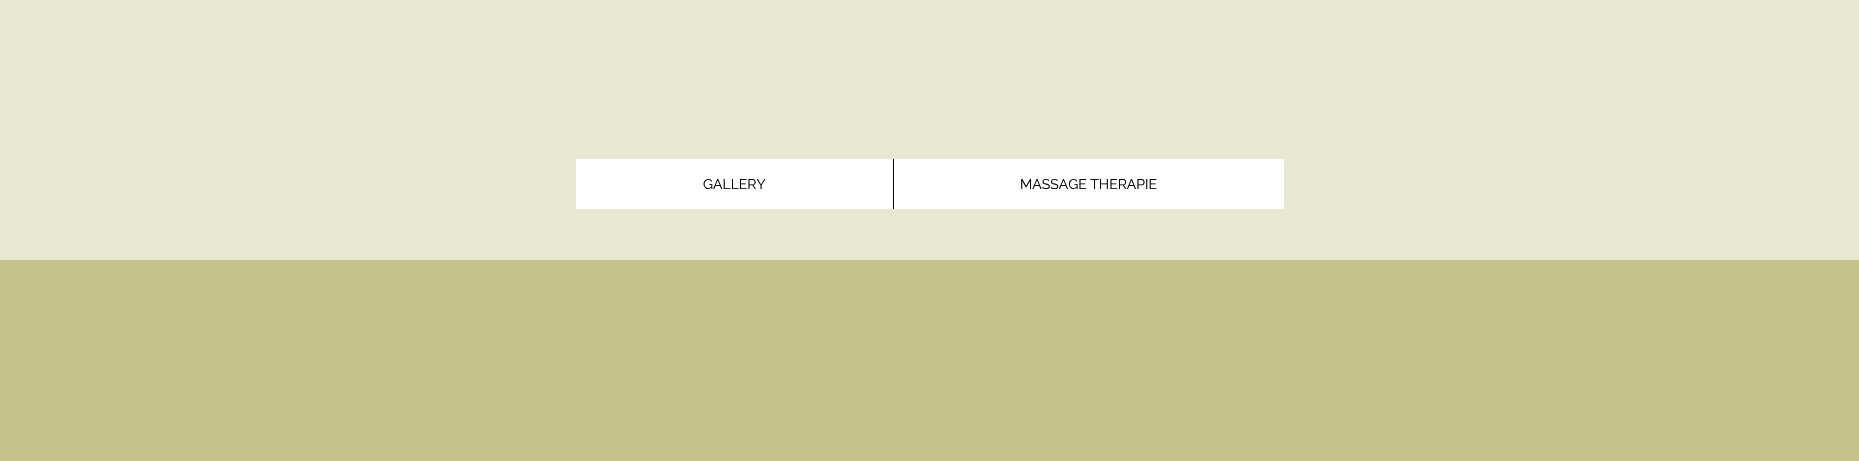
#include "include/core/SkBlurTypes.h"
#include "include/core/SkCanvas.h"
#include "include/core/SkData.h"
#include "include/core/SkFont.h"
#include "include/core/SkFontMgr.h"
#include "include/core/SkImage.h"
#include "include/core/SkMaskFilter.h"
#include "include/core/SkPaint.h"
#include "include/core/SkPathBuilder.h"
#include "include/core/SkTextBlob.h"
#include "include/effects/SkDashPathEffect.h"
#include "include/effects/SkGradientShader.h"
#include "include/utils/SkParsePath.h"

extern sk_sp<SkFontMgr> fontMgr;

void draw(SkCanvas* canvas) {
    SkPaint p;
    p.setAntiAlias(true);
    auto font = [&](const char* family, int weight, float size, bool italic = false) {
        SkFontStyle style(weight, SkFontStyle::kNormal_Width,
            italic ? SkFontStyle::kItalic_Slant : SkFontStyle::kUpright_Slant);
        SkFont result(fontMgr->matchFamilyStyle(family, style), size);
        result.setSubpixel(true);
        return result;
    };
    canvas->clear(0xFFC5C389);
    p.setColor(0xFFE8E7D0);
    canvas->drawRect(SkRect::MakeLTRB(0, 0, 1859, 260), p);
    p.setColor(0xFFFFFFFF);
    canvas->drawRect(SkRect::MakeLTRB(576, 159, 1284, 209), p);
    auto font1 = font("Raleway", 400, 14);
    p.setColor(0xFF050505);
    canvas->drawString("GALLERY", 703, 189, font1, p);
    canvas->drawRect(SkRect::MakeLTRB(893, 159, 894, 209), p);
    canvas->drawString("MASSAGE THERAPIE", 1020, 189, font1, p);
}
